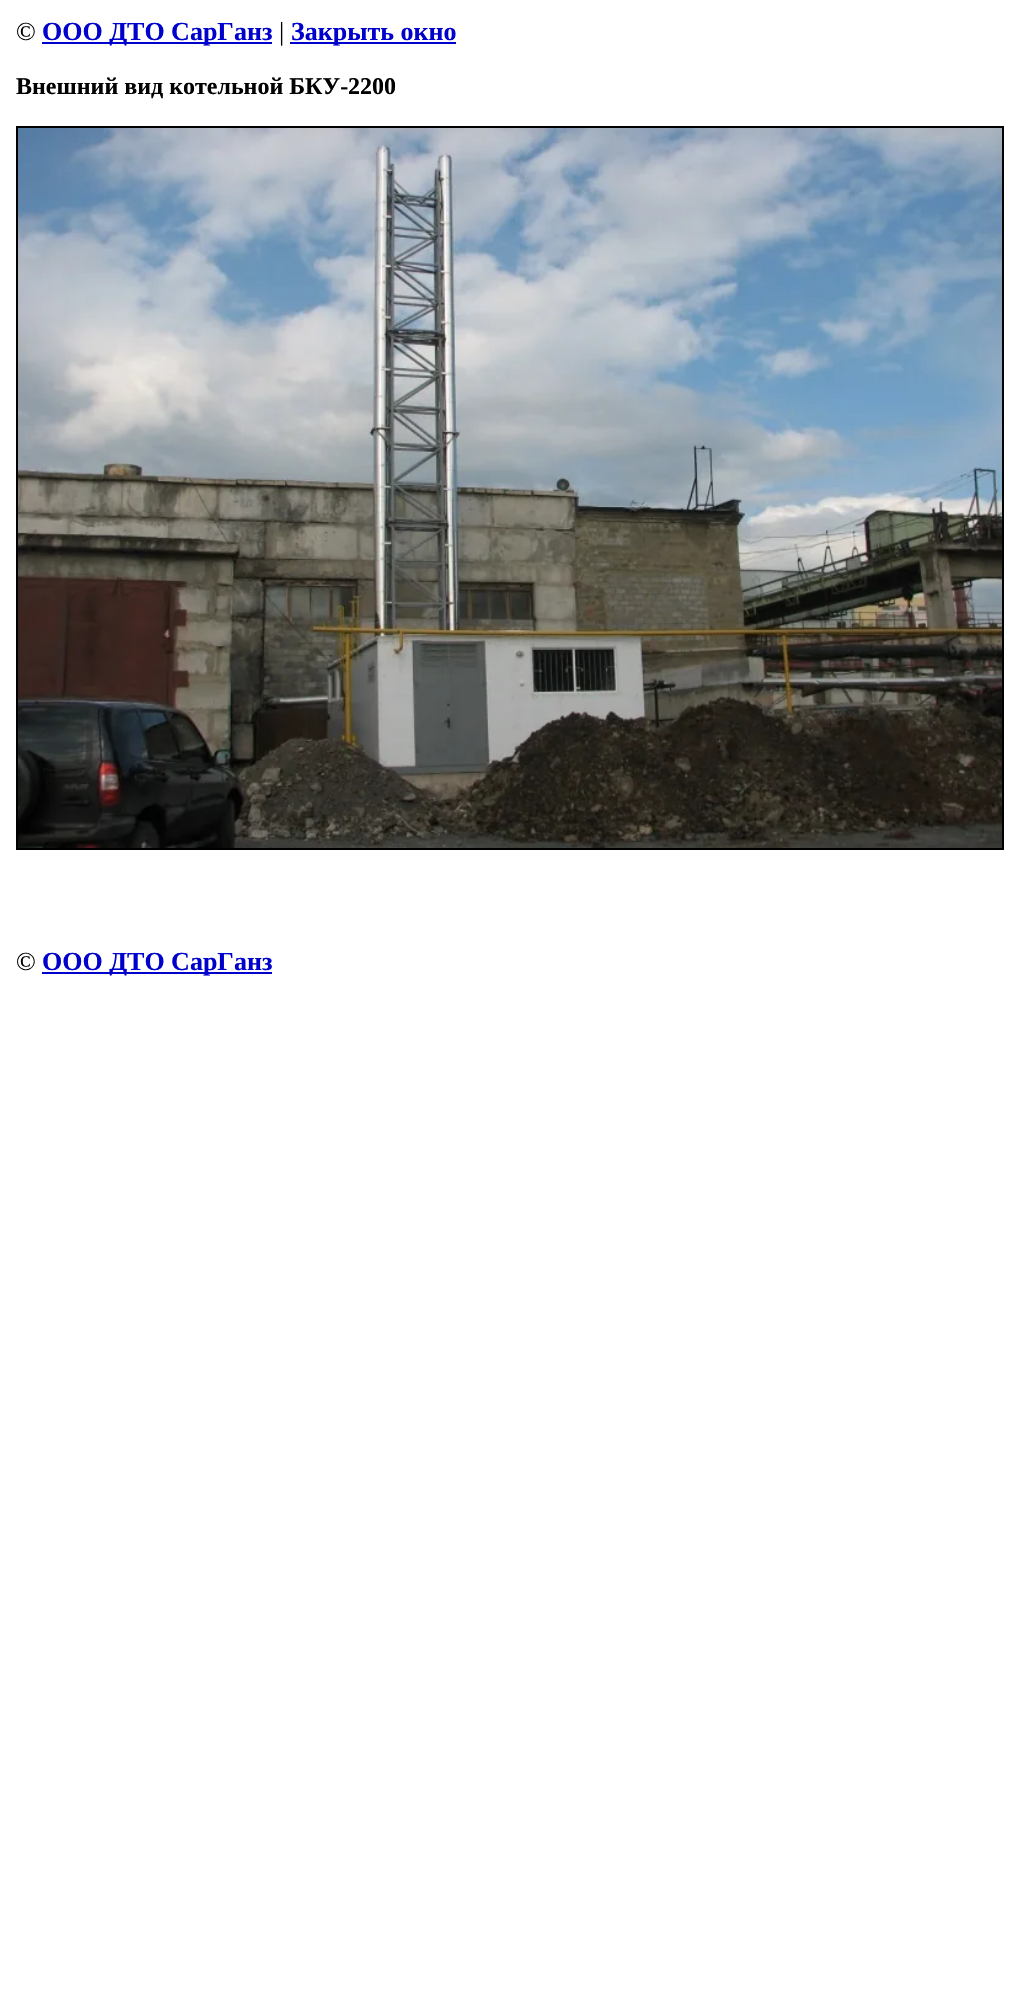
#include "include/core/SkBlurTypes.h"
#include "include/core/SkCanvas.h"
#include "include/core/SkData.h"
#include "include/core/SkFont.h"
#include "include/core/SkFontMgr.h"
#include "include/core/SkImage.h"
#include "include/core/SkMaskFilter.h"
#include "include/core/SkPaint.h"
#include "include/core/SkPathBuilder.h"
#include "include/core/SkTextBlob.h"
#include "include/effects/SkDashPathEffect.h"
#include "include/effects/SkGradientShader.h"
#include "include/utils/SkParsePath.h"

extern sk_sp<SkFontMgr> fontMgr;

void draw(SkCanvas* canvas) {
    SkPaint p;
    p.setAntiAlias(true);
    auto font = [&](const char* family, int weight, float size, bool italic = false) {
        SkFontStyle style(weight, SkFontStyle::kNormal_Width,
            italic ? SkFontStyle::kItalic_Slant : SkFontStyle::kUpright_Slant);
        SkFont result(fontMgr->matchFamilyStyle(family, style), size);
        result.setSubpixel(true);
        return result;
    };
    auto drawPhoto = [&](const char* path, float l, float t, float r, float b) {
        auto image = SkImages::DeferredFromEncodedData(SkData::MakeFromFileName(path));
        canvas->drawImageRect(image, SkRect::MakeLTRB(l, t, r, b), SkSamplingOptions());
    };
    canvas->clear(0xFFFFFFFF);
    auto font1 = font("Liberation Serif", 400, 26);
    p.setColor(0xFF000000);
    canvas->drawString("©", 16, 40, font1, p);
    p.setColor(0xFF0000CC);
    canvas->drawRect(SkRect::MakeLTRB(42, 42, 272, 44), p);
    auto font2 = font("Liberation Serif", 700, 26);
    canvas->drawString("OOO ДТО СарГанз", 42, 40, font2, p);
    p.setColor(0xFF000000);
    canvas->drawString("|", 279, 40, font1, p);
    p.setColor(0xFF0000CC);
    canvas->drawRect(SkRect::MakeLTRB(290, 42, 456, 44), p);
    canvas->drawString("Закрыть окно", 291, 40, font2, p);
    auto font3 = font("Liberation Serif", 700, 24);
    p.setColor(0xFF000000);
    canvas->drawString("Внешний вид котельной БКУ-2200", 16, 94, font3, p);
    p.setStyle(SkPaint::kStroke_Style);
    p.setStrokeWidth(2);
    canvas->drawRect(SkRect::MakeLTRB(17, 127, 1003, 849), p);
    drawPhoto("media/1.png", 18, 128, 1002, 848);
    p.setStyle(SkPaint::kFill_Style);
    canvas->drawString("©", 16, 970, font1, p);
    p.setColor(0xFF0000CC);
    canvas->drawRect(SkRect::MakeLTRB(42, 972, 272, 974), p);
    canvas->drawString("OOO ДТО СарГанз", 42, 970, font2, p);
}
